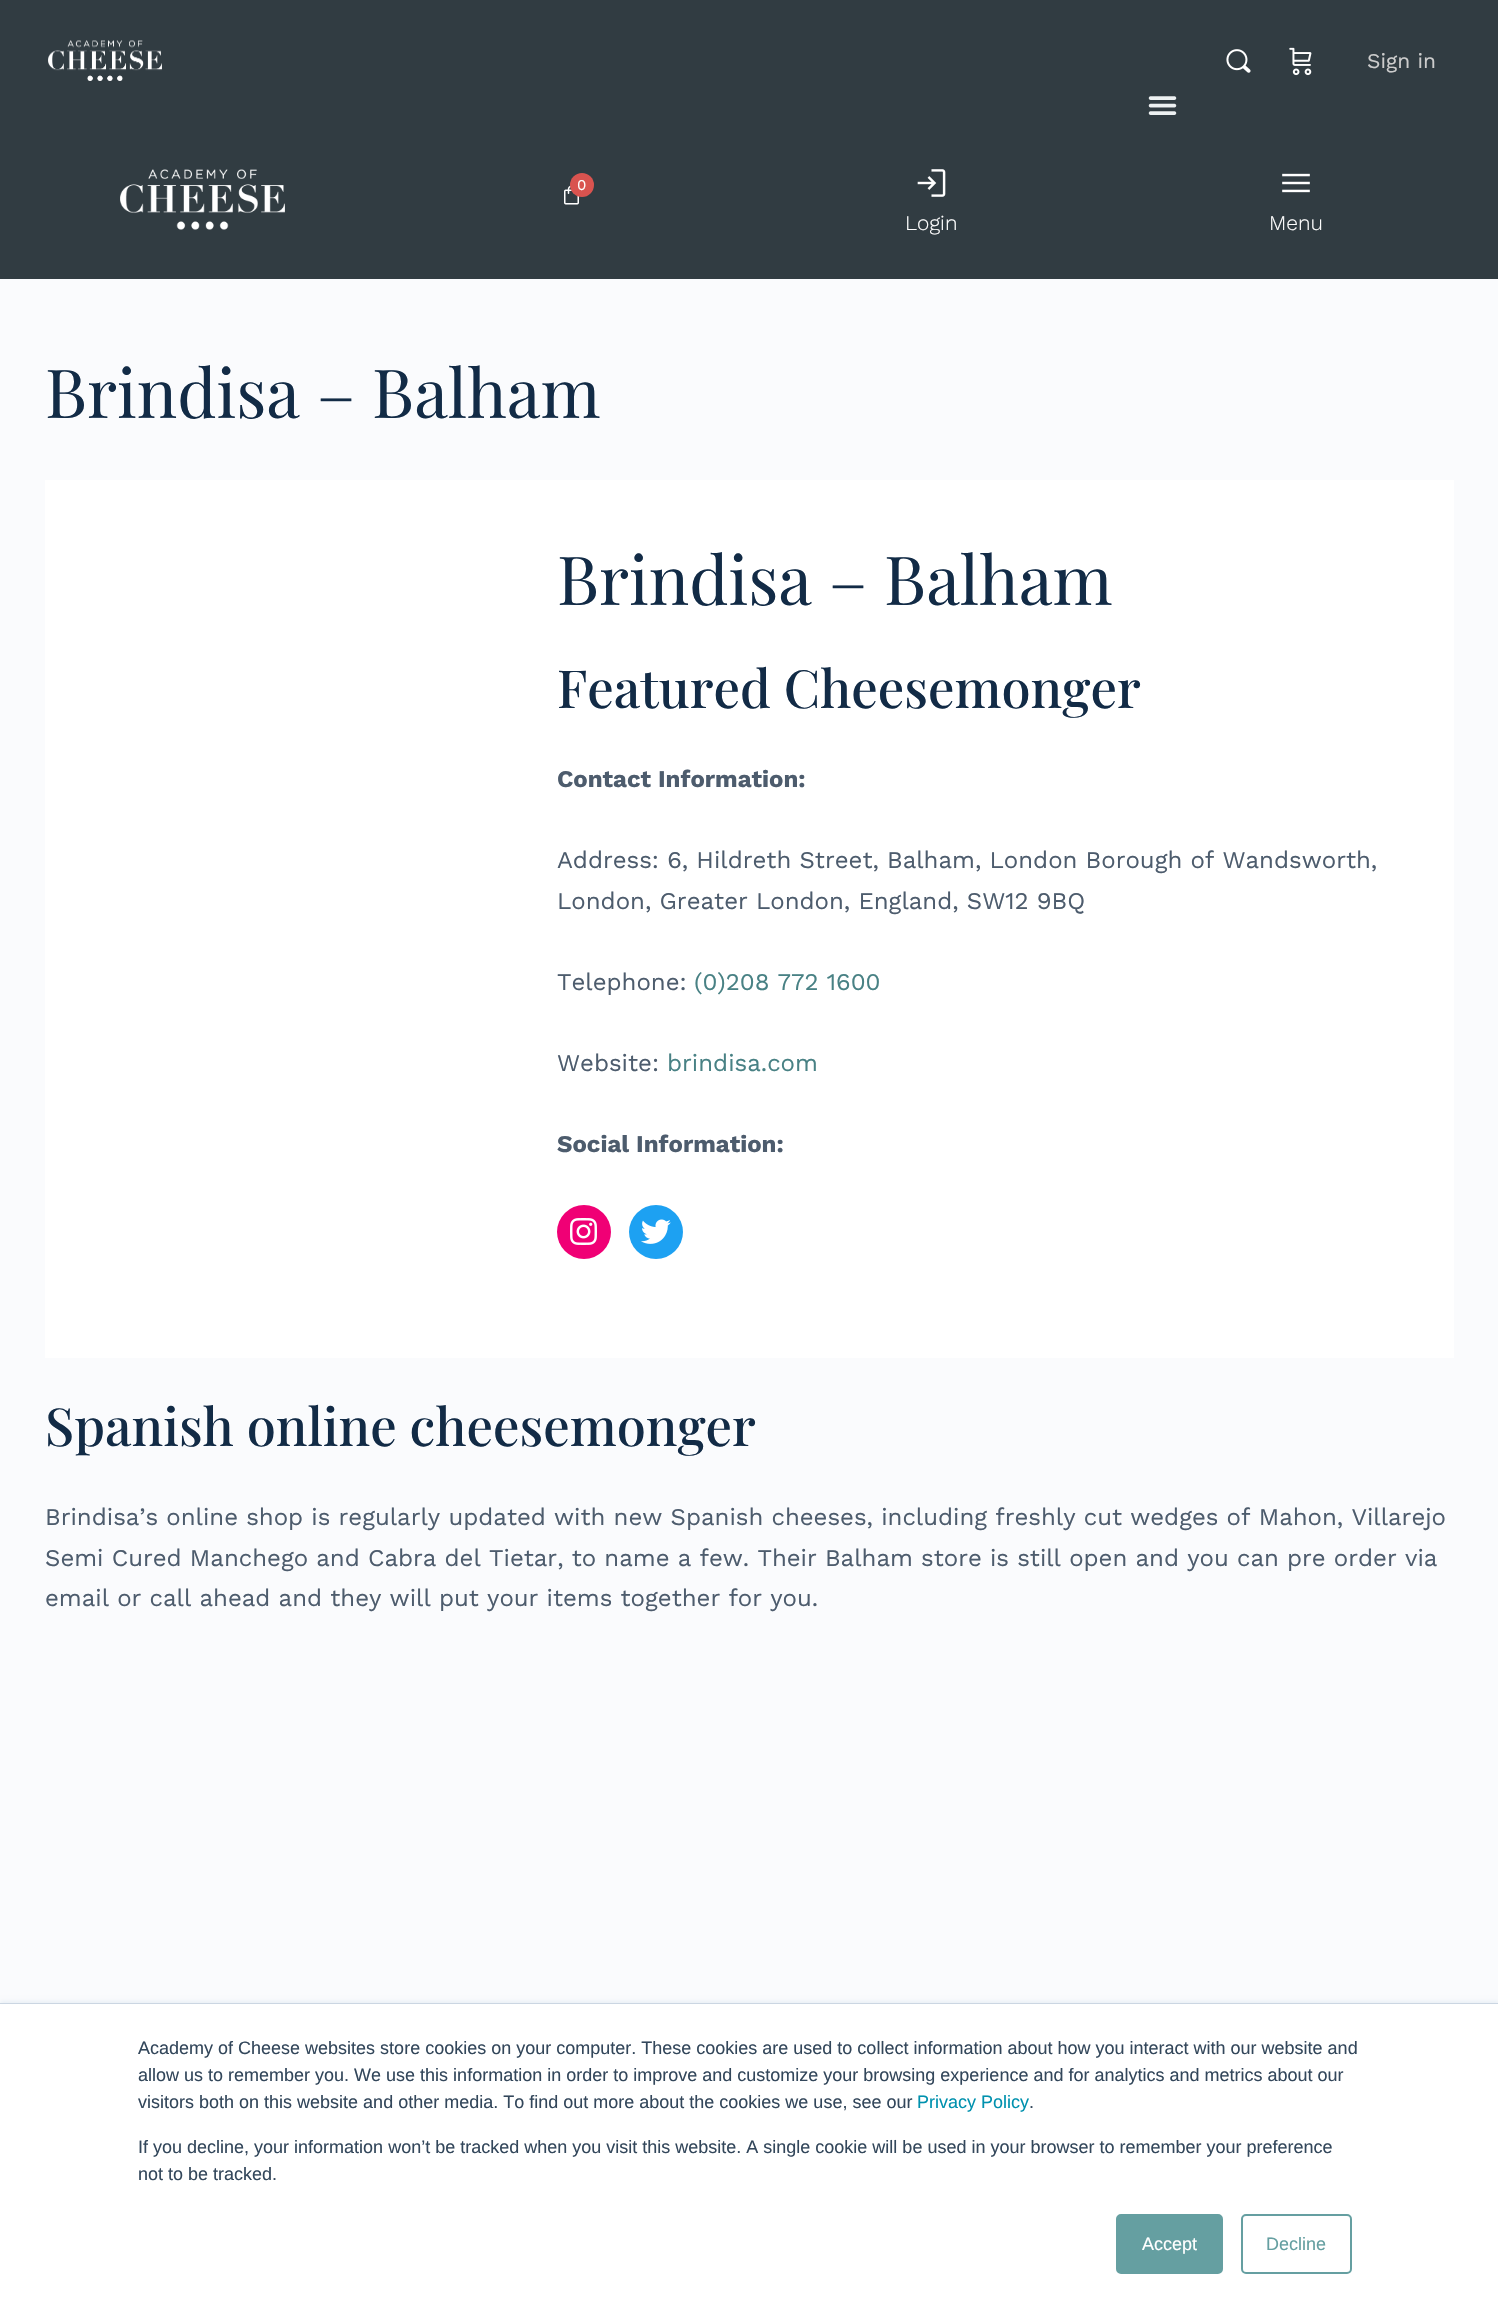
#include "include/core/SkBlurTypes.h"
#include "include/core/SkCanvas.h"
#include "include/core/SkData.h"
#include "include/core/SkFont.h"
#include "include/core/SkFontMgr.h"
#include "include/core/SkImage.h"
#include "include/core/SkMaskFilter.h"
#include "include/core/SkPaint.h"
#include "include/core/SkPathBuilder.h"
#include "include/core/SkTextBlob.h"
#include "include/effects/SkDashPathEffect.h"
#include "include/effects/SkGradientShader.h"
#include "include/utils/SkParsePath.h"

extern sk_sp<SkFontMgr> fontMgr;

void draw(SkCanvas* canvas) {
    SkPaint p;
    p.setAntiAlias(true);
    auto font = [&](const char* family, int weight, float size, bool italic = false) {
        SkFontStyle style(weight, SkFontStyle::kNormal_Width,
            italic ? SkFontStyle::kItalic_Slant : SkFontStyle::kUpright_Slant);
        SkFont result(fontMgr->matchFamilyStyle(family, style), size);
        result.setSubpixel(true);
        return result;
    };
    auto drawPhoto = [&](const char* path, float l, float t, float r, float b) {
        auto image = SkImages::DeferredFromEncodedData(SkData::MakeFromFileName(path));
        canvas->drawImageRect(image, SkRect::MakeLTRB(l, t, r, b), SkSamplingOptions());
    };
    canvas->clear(0xFFFAFBFD);
    p.setColor(0xFF313C42);
    canvas->drawRect(SkRect::MakeLTRB(0, 0, 1498, 279), p);
    drawPhoto("media/1.png", 48, 40, 162, 81);
    drawPhoto("media/2.png", 1226, 49, 1251, 73);
    drawPhoto("media/3.png", 1289, 47, 1312, 76);
    auto font1 = font("Work Sans", 400, 21);
    p.setColor(0xFFCCCCCC);
    canvas->drawString("Sign in", 1367, 68, font1, p);
    drawPhoto("media/4.png", 1148, 96, 1177, 115);
    drawPhoto("media/5.png", 120, 169, 285, 230);
    drawPhoto("media/6.png", 564, 185, 579, 205);
    p.setColor(0xFFD9534F);
    canvas->drawCircle(582, 185, 12, p);
    auto font2 = font("Work Sans", 400, 15);
    p.setColor(0xFFFFFFFF);
    canvas->drawString("0", 577, 190, font2, p);
    drawPhoto("media/7.png", 917, 169, 946, 197);
    auto font3 = font("Work Sans", 300, 21);
    canvas->drawString("Login", 905, 230, font3, p);
    drawPhoto("media/8.png", 1282, 173, 1310, 193);
    canvas->drawString("Menu", 1269, 230, font3, p);
    auto font4 = font("Playfair Display", 400, 67.5f);
    p.setColor(0xFF122B46);
    canvas->drawString("Brindisa – Balham", 45, 418, font4, p);
    p.setColor(0xFFFFFFFF);
    canvas->drawRect(SkRect::MakeLTRB(45, 480, 1454, 1358), p);
    p.setColor(0xFF122B46);
    canvas->drawString("Brindisa – Balham", 557, 605, font4, p);
    auto font5 = font("Playfair Display", 500, 52.5f);
    canvas->drawString("Featured Cheesemonger", 557, 708, font5, p);
    auto font6 = font("Work Sans", 700, 24);
    p.setColor(0xFF4D5C6D);
    canvas->drawString("Contact Information:", 557, 787, font6, p);
    auto font7 = font("Work Sans", 400, 24);
    {
        const struct { const char* s; float x, y; } items[] = {
            {"Address: 6, Hildreth Street, Balham, London Borough of Wandsworth,", 557, 868},
            {"London, Greater London, England, SW12 9BQ", 557, 909},
            {"Telephone:", 557, 990},
        };
        for (auto [s, x, y] : items) {
            canvas->drawString(s, x, y, font7, p);
        }
    }
    p.setColor(0xFF488184);
    canvas->drawString("(0)208 772 1600", 694, 990, font7, p);
    p.setColor(0xFF4D5C6D);
    canvas->drawString("Website:", 557, 1071, font7, p);
    p.setColor(0xFF488184);
    canvas->drawString("brindisa.com", 667, 1071, font7, p);
    p.setColor(0xFF4D5C6D);
    canvas->drawString("Social Information:", 557, 1152, font6, p);
    p.setColor(0xFFF00075);
    canvas->drawCircle(584, 1232, 27, p);
    drawPhoto("media/9.png", 570, 1218, 597, 1245);
    p.setColor(0xFF1DA1F2);
    canvas->drawCircle(656, 1232, 27, p);
    drawPhoto("media/10.png", 641, 1219, 671, 1244);
    p.setColor(0xFF122B46);
    canvas->drawString("Spanish online cheesemonger", 45, 1446, font5, p);
    p.setColor(0xFF4D5C6D);
    {
        const struct { const char* s; float x, y; } items[] = {
            {"Brindisa’s online shop is regularly updated with new Spanish cheeses, including freshly cut wedges of Mahon, Villarejo", 45, 1525},
            {"Semi Cured Manchego and Cabra del Tietar, to name a few. Their Balham store is still open and you can pre order via", 45, 1566},
            {"email or call ahead and they will put your items together for you.", 45, 1606},
        };
        for (auto [s, x, y] : items) {
            canvas->drawString(s, x, y, font7, p);
        }
    }
    p.setColor(0xFFEAF0F6);
    p.setMaskFilter(SkMaskFilter::MakeBlur(kNormal_SkBlurStyle, 2));
    canvas->drawRect(SkRect::MakeLTRB(0, 2001, 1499, 2312), p);
    p.setMaskFilter(nullptr);
    p.setColor(0xFFCBD6E2);
    canvas->drawRect(SkRect::MakeLTRB(0, 2003, 1498, 2004), p);
    p.setColor(0xFFFFFFFF);
    canvas->drawRect(SkRect::MakeLTRB(0, 2004, 1498, 2312), p);
    auto font8 = font("Liberation Sans", 400, 18);
    p.setColor(0xFF33475B);
    {
        const struct { const char* s; float x, y; } items[] = {
            {"Academy of Cheese websites store cookies on your computer. These cookies are used to collect information about how you interact with our website and", 138, 2054},
            {"allow us to remember you. We use this information in order to improve and customize your browsing experience and for analytics and metrics about our", 138, 2081},
            {"visitors both on this website and other media. To find out more about the cookies we use, see our", 138, 2108},
        };
        for (auto [s, x, y] : items) {
            canvas->drawString(s, x, y, font8, p);
        }
    }
    p.setColor(0xFF0091AE);
    canvas->drawString("Privacy Policy", 917, 2108, font8, p);
    p.setColor(0xFF33475B);
    {
        const struct { const char* s; float x, y; } items[] = {
            {".", 1029, 2108},
            {"If you decline, your information won’t be tracked when you visit this website. A single cookie will be used in your browser to remember your preference", 138, 2153},
            {"not to be tracked.", 138, 2180},
        };
        for (auto [s, x, y] : items) {
            canvas->drawString(s, x, y, font8, p);
        }
    }
    p.setColor(0xFF659FA1);
    canvas->drawRoundRect(SkRect::MakeLTRB(1117, 2215, 1222, 2273), 4, 4, p);
    p.setStyle(SkPaint::kStroke_Style);
    p.setStrokeWidth(2);
    canvas->drawRoundRect(SkRect::MakeLTRB(1117, 2215, 1222, 2273), 4, 4, p);
    p.setStyle(SkPaint::kFill_Style);
    p.setColor(0xFFFFFFFF);
    canvas->drawString("Accept", 1142, 2250, font8, p);
    p.setStyle(SkPaint::kStroke_Style);
    p.setColor(0xFF659FA1);
    canvas->drawRoundRect(SkRect::MakeLTRB(1242, 2215, 1351, 2273), 4, 4, p);
    p.setStyle(SkPaint::kFill_Style);
    canvas->drawString("Decline", 1266, 2250, font8, p);
}
